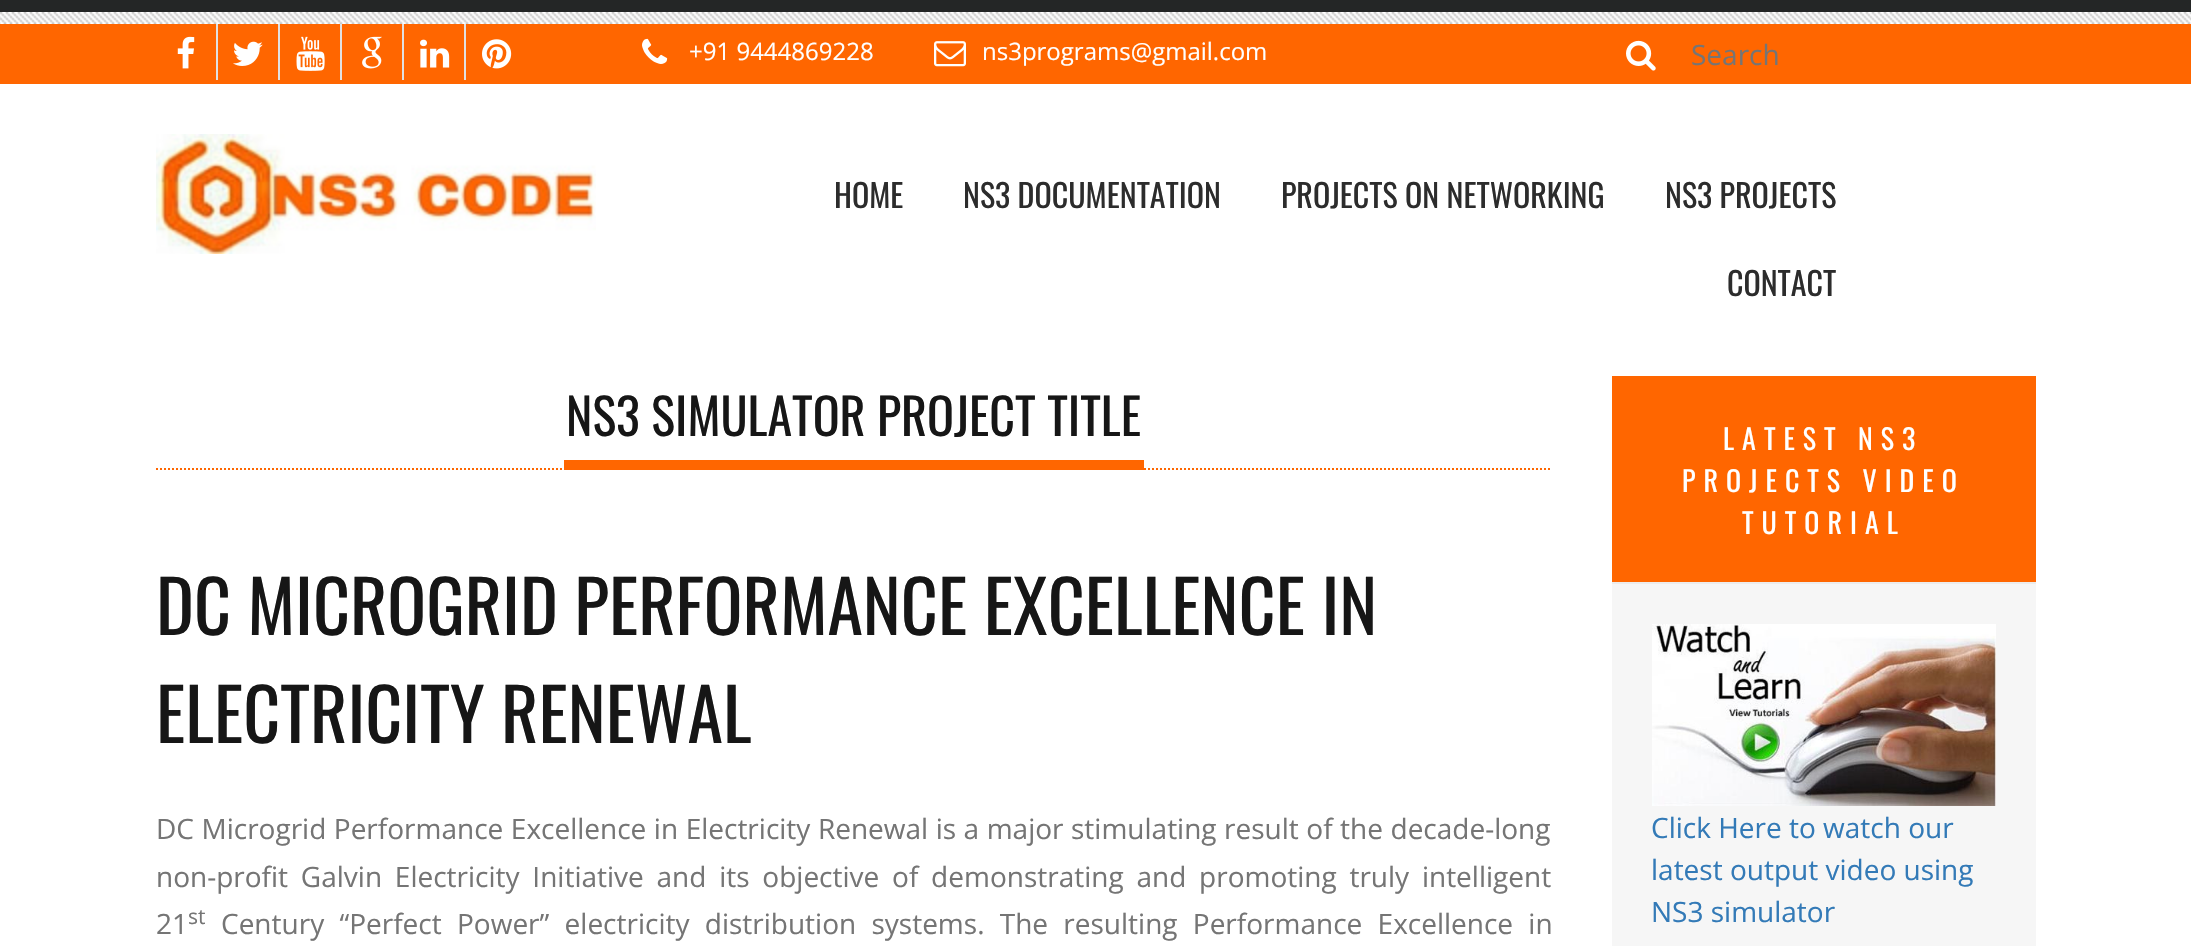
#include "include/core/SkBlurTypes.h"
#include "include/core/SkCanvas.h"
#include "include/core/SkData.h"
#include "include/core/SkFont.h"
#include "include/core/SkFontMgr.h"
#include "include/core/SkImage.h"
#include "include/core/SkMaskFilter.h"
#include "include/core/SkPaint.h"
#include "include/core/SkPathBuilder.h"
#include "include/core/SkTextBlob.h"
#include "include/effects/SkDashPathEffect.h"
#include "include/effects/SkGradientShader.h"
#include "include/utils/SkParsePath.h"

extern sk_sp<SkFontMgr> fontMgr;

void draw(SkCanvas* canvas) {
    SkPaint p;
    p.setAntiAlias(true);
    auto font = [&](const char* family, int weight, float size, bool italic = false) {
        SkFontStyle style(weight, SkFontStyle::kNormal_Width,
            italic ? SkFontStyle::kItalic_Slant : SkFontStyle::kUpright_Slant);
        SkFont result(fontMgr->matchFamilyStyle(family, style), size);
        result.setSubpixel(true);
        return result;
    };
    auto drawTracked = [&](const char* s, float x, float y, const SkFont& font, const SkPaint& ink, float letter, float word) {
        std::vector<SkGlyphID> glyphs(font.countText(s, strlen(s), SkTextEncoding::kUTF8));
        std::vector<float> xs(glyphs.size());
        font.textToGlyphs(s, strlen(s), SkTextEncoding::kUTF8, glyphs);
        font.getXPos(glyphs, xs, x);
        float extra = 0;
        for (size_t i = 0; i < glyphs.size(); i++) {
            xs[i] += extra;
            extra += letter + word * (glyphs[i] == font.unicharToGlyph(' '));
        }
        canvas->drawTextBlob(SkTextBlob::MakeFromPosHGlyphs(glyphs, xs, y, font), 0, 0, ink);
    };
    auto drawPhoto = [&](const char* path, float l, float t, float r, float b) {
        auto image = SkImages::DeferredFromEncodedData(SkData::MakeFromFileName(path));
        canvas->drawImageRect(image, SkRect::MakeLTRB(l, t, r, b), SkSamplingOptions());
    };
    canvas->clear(0xFFFFFFFF);
    p.setColor(0xFF242626);
    canvas->drawRect(SkRect::MakeLTRB(0, 0, 2191, 12), p);
    drawPhoto("media/1.png", 0, 12, 2191, 24);
    p.setColor(0xFFFF6600);
    canvas->drawRect(SkRect::MakeLTRB(0, 24, 2191, 84), p);
    p.setColor(0xFFE1E1E1);
    canvas->drawRect(SkRect::MakeLTRB(216, 24, 218, 80), p);
    drawPhoto("media/2.png", 177, 36, 195, 69);
    canvas->drawRect(SkRect::MakeLTRB(278, 24, 280, 80), p);
    drawPhoto("media/3.png", 233, 41, 263, 66);
    canvas->drawRect(SkRect::MakeLTRB(340, 24, 342, 80), p);
    drawPhoto("media/4.png", 296, 36, 325, 71);
    canvas->drawRect(SkRect::MakeLTRB(402, 24, 404, 80), p);
    drawPhoto("media/5.png", 362, 36, 382, 69);
    canvas->drawRect(SkRect::MakeLTRB(464, 24, 466, 80), p);
    drawPhoto("media/6.png", 420, 39, 450, 68);
    drawPhoto("media/7.png", 482, 39, 512, 69);
    drawPhoto("media/8.png", 642, 38, 668, 64);
    auto font1 = font("Open Sans", 400, 24);
    p.setColor(0xFFFFFFFF);
    canvas->drawString("+91 9444869228", 689, 60, font1, p);
    drawPhoto("media/9.png", 934, 41, 966, 67);
    canvas->drawString("ns3programs@gmail.com", 982, 60, font1, p);
    drawPhoto("media/10.png", 1626, 40, 1656, 71);
    auto font2 = font("Open Sans", 400, 28);
    p.setColor(0xFF757575);
    canvas->drawString("Search", 1691, 65, font2, p);
    drawPhoto("media/11.png", 156, 134, 596, 254);
    auto font3 = font("Oswald", 400, 32);
    p.setColor(0xFF2C2C2C);
    {
        const struct { const char* s; float x, y; } items[] = {
            {"HOME", 834, 208},
            {"NS3 DOCUMENTATION", 963, 208},
            {"PROJECTS ON NETWORKING", 1281, 208},
            {"NS3 PROJECTS", 1665, 208},
            {"CONTACT", 1727, 296},
        };
        for (auto [s, x, y] : items) {
            canvas->drawString(s, x, y, font3, p);
        }
    }
    p.setStyle(SkPaint::kStroke_Style);
    p.setStrokeWidth(2);
    p.setColor(0xFFFF6600);
    p.setPathEffect(SkDashPathEffect::Make({{2, 2}}, 0));
    canvas->drawPath(SkPathBuilder().moveTo(156, 469).lineTo(1552, 469).detach(), p);
    p.setPathEffect(nullptr);
    p.setStyle(SkPaint::kFill_Style);
    canvas->drawRect(SkRect::MakeLTRB(564, 460, 1144, 470), p);
    auto font4 = font("Oswald", 400, 50);
    p.setColor(0xFF161616);
    canvas->drawString("NS3 SIMULATOR PROJECT TITLE", 566, 436, font4, p);
    auto font5 = font("Oswald", 400, 72);
    canvas->drawString("DC MICROGRID PERFORMANCE EXCELLENCE IN", 156, 635, font5, p);
    canvas->drawString("ELECTRICITY RENEWAL", 156, 743, font5, p);
    p.setColor(0xFF757575);
    drawTracked("DC Microgrid Performance Excellence in Electricity Renewal is a major stimulating result of the decade-long", 156, 839, font2, p, 0, 0.25f);
    drawTracked("non-profit Galvin Electricity Initiative and its objective of demonstrating and promoting truly intelligent", 156, 887, font2, p, 0, 5.5f);
    canvas->drawString("21", 156, 934, font2, p);
    auto font6 = font("Open Sans", 400, 21);
    canvas->drawString("st", 188, 924, font6, p);
    drawTracked("Century “Perfect Power” electricity distribution systems. The resulting Performance Excellence in", 221, 934, font2, p, 0, 8);
    {
        const struct { float l, t, r, b; SkColor color; } items[] = {
            {1612, 584, 2036, 946, 0xFFF6F6F6},
            {1612, 376, 2036, 582, 0xFFFF6600},
            {1612, 582, 2036, 584, 0xFFECECEC},
        };
        for (auto [l, t, r, b, color] : items) {
            p.setColor(color);
            canvas->drawRect(SkRect::MakeLTRB(l, t, r, b), p);
        }
    }
    auto font7 = font("Oswald", 400, 28);
    p.setColor(0xFFFFFFFF);
    {
        const struct { const char* s; float x, y; } items[] = {
            {"LATEST NS3", 1723, 450},
            {"PROJECTS VIDEO", 1682, 492},
            {"TUTORIAL", 1742, 534},
        };
        for (auto [s, x, y] : items) {
            drawTracked(s, x, y, font7, p, 8, 0);
        }
    }
    drawPhoto("media/12.png", 1652, 624, 1996, 806);
    p.setColor(0xFF337AB7);
    {
        const struct { const char* s; float x, y; } items[] = {
            {"Click Here to watch our", 1651, 838},
            {"latest output video using", 1651, 880},
            {"NS3 simulator", 1651, 922},
        };
        for (auto [s, x, y] : items) {
            canvas->drawString(s, x, y, font2, p);
        }
    }
}
